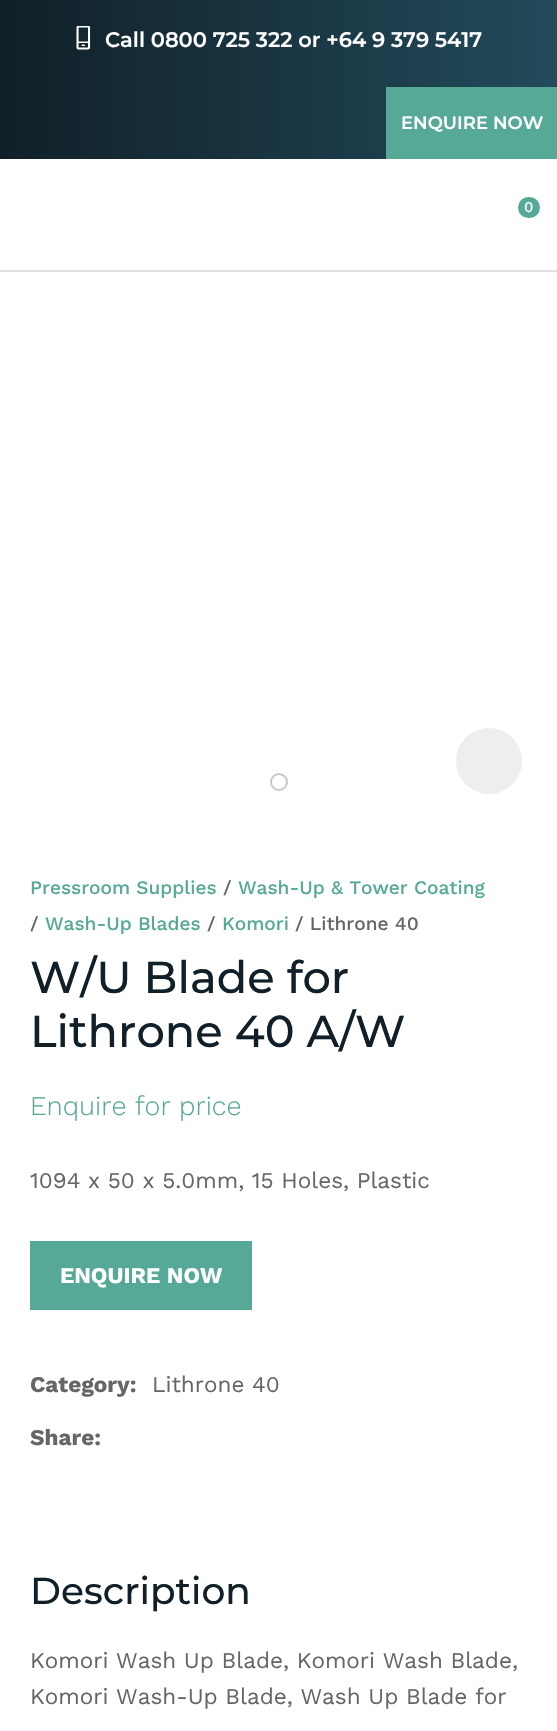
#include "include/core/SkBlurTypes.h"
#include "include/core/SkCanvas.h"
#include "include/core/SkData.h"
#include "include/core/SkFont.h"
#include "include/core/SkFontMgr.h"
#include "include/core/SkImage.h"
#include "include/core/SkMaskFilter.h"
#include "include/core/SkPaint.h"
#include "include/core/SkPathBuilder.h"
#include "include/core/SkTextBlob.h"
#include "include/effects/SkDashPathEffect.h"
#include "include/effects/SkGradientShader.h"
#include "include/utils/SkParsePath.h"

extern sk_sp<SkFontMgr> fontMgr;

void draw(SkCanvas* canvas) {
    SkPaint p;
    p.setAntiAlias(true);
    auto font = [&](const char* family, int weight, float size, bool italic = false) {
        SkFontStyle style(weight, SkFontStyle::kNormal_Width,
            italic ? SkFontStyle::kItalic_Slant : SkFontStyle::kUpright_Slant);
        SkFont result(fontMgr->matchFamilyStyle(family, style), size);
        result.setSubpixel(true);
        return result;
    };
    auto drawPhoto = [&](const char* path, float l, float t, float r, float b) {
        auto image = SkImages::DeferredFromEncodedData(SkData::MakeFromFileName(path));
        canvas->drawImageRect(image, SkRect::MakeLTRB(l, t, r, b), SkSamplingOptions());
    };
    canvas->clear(0xFFFFFFFF);
    {
        const SkColor colors[] = {0xFF112028, 0xFF224B5B};
        const float stops[] = {0, 1};
        const SkPoint ends[] = {{0, 80}, {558, 79}};
        p.setShader(SkGradientShader::MakeLinear(ends, colors, stops, 2, SkTileMode::kClamp));
        p.setAlpha(255);
    }
    canvas->drawRect(SkRect::MakeLTRB(0, 0, 557, 159), p);
    drawPhoto("media/1.png", 76, 26, 91, 50);
    auto font1 = font("Montserrat", 600, 21);
    p.setShader(nullptr);
    p.setColor(0xFFFFFFFF);
    canvas->drawString("Call 0800 725 322 or +64 9 379 5417", 105, 47, font1, p);
    p.setColor(0xFF55A996);
    canvas->drawRect(SkRect::MakeLTRB(386, 87, 557, 159), p);
    auto font2 = font("Montserrat", 600, 18);
    p.setColor(0xFFFFFFFF);
    canvas->drawString("ENQUIRE NOW", 401, 129, font2, p);
    p.setColor(0xFF55A996);
    canvas->drawRoundRect(SkRect::MakeLTRB(518, 197, 540, 218), 10.5f, 10.5f, p);
    auto font3 = font("Work Sans", 500, 15);
    p.setColor(0xFFF8F8F8);
    canvas->drawString("0", 524, 212, font3, p);
    p.setColor(0xFFE1E1E1);
    canvas->drawRect(SkRect::MakeLTRB(0, 270, 557, 272), p);
    p.setStyle(SkPaint::kStroke_Style);
    p.setStrokeWidth(2);
    p.setColor(0xFFC9C9C9);
    canvas->drawCircle(279, 782, 8, p);
    p.setStyle(SkPaint::kFill_Style);
    p.setColor(0xFFEEEEEE);
    canvas->drawCircle(489, 761, 33, p);
    auto font4 = font("Work Sans", 500, 19.1f);
    p.setColor(0xFF55A996);
    canvas->drawString("Pressroom Supplies", 30, 894, font4, p);
    p.setColor(0xFF666666);
    canvas->drawString("/", 223, 894, font4, p);
    p.setColor(0xFF55A996);
    canvas->drawString("Wash-Up & Tower Coating", 238, 894, font4, p);
    p.setColor(0xFF666666);
    canvas->drawString("/", 30, 930, font4, p);
    p.setColor(0xFF55A996);
    canvas->drawString("Wash-Up Blades", 45, 930, font4, p);
    p.setColor(0xFF666666);
    canvas->drawString("/", 207, 930, font4, p);
    p.setColor(0xFF55A996);
    canvas->drawString("Komori", 222, 930, font4, p);
    p.setColor(0xFF666666);
    canvas->drawString("/ Lithrone 40", 295, 930, font4, p);
    auto font5 = font("Montserrat", 500, 44.75f);
    p.setColor(0xFF112028);
    canvas->drawString("W/U Blade for", 30, 993, font5, p);
    canvas->drawString("Lithrone 40 A/W", 30, 1047, font5, p);
    auto font6 = font("Work Sans", 300, 27);
    p.setColor(0xFF55A996);
    canvas->drawString("Enquire for price", 30, 1115, font6, p);
    auto font7 = font("Work Sans", 400, 22.5f);
    p.setColor(0xFF666666);
    canvas->drawString("1094 x 50 x 5.0mm, 15 Holes, Plastic", 30, 1188, font7, p);
    p.setColor(0xFF55A996);
    canvas->drawRect(SkRect::MakeLTRB(30, 1241, 252, 1310), p);
    auto font8 = font("Work Sans", 700, 22.5f);
    p.setColor(0xFFFFFFFF);
    canvas->drawString("ENQUIRE NOW", 60, 1283, font8, p);
    p.setColor(0xFF666666);
    canvas->drawString("Category:", 30, 1392, font8, p);
    canvas->drawString("Lithrone 40", 152, 1392, font7, p);
    canvas->drawString("Share:", 30, 1445, font8, p);
    auto font9 = font("Montserrat", 500, 37.5f);
    p.setColor(0xFF112028);
    canvas->drawString("Description", 30, 1604, font9, p);
    p.setColor(0xFF666666);
    canvas->drawString("Komori Wash Up Blade, Komori Wash Blade,", 30, 1668, font7, p);
    canvas->drawString("Komori Wash-Up Blade, Wash Up Blade for", 30, 1704, font7, p);
}
